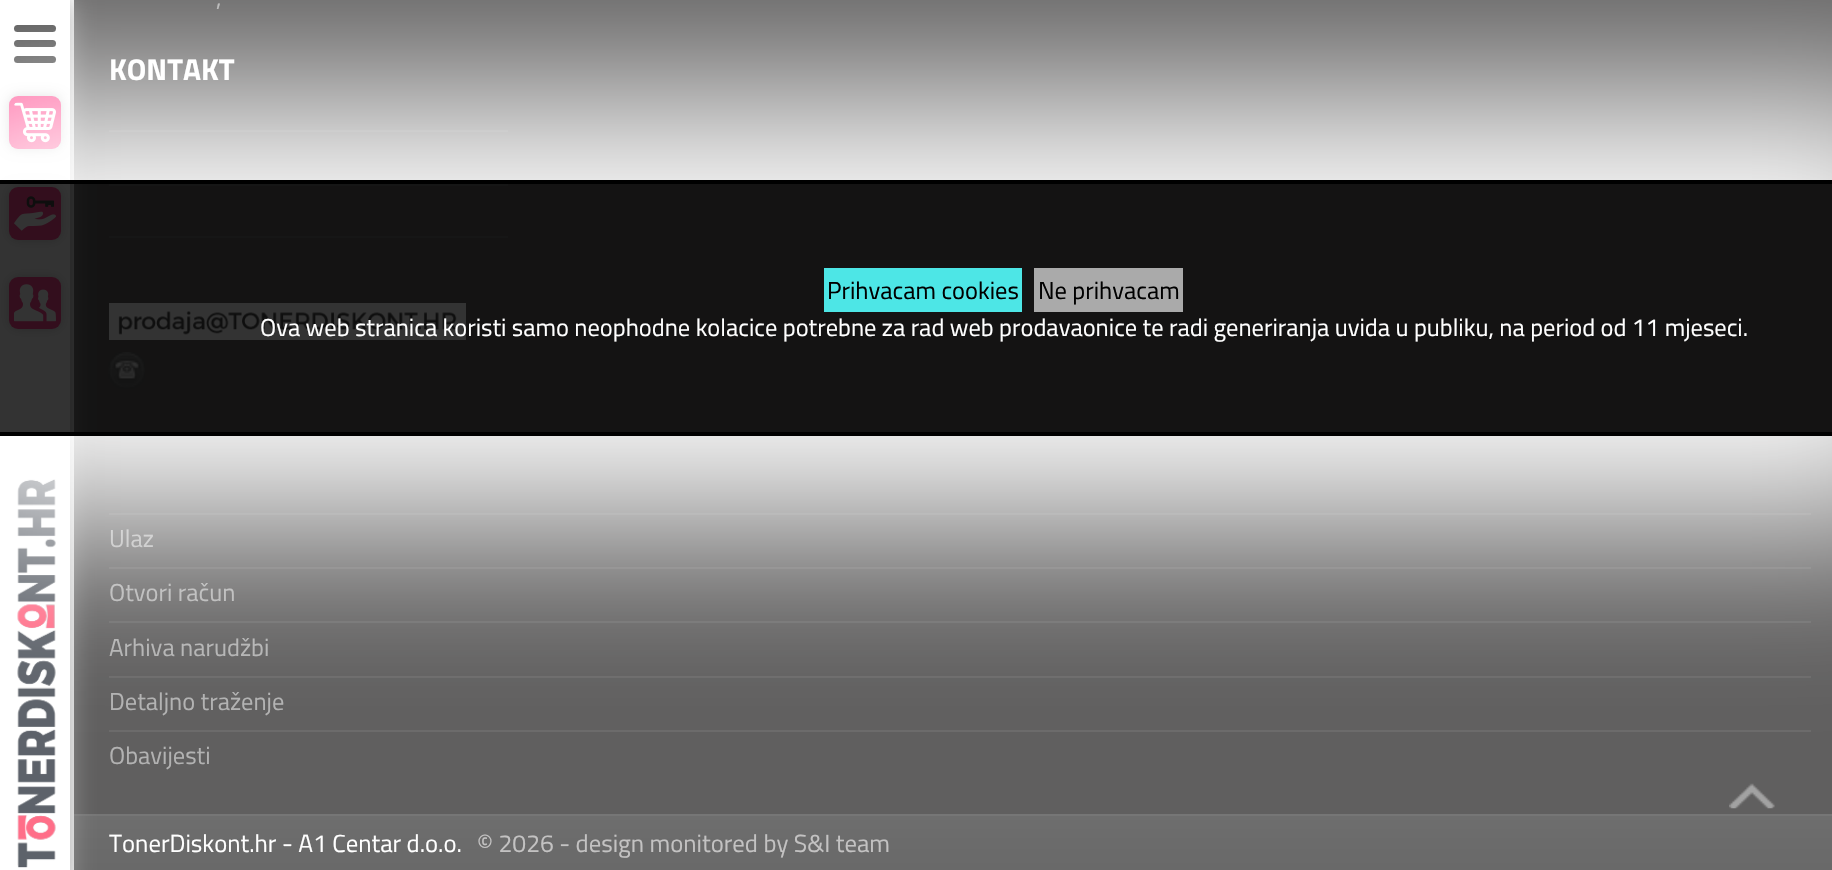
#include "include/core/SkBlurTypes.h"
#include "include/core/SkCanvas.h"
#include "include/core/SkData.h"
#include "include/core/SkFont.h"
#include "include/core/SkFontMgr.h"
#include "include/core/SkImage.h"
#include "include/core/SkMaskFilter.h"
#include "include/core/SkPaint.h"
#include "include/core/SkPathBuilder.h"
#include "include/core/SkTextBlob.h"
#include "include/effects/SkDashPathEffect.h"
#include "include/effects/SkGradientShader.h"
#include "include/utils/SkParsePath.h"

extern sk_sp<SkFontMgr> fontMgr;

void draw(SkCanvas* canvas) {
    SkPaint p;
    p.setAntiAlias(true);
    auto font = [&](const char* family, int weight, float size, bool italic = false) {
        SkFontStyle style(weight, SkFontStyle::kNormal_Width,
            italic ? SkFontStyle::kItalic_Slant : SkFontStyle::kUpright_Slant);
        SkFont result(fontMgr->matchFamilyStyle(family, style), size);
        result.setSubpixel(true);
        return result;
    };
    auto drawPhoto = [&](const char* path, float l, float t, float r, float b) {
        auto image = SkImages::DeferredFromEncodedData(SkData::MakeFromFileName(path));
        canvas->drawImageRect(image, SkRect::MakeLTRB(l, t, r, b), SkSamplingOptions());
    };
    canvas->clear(0xFFFFFFFF);
    {
        const struct { float l, t, r, b; SkColor color; } items[] = {
            {74, 0, 1832, 814, 0xFF605F5F},
            {109, 130, 508, 132, 0xFF6B6A6A},
            {109, 184, 508, 186, 0xFF6B6A6A},
            {109, 236, 508, 238, 0xFF6B6A6A},
            {109, 303, 466, 340, 0xFFFFFFFF},
        };
        for (auto [l, t, r, b, color] : items) {
            p.setColor(color);
            canvas->drawRect(SkRect::MakeLTRB(l, t, r, b), p);
        }
    }
    drawPhoto("media/6.png", 108, 352, 145, 389);
    {
        const struct { float l, t, r, b; SkColor color; } items[] = {
            {109, 513, 1811, 515, 0xFF6B6A6A},
            {109, 567, 1811, 569, 0xFF6B6A6A},
            {109, 621, 1811, 623, 0xFF6B6A6A},
            {109, 676, 1811, 678, 0xFF6B6A6A},
            {109, 730, 1811, 732, 0xFF6B6A6A},
        };
        for (auto [l, t, r, b, color] : items) {
            p.setColor(color);
            canvas->drawRect(SkRect::MakeLTRB(l, t, r, b), p);
        }
    }
    {
        const SkColor colors[] = {0xFF6E6E6E, 0xFF6B6B6B, 0xFF696969};
        const float stops[] = {0, 0.5f, 1};
        const SkPoint ends[] = {{953, 815}, {953, 870}};
        p.setShader(SkGradientShader::MakeLinear(ends, colors, stops, 3, SkTileMode::kClamp));
        p.setAlpha(255);
    }
    canvas->drawRect(SkRect::MakeLTRB(74, 816, 1832, 870), p);
    p.setShader(nullptr);
    p.setColor(0xFF767676);
    canvas->drawRect(SkRect::MakeLTRB(74, 814, 1832, 816), p);
    canvas->save();
    canvas->clipRect(SkRect::MakeLTRB(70, 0, 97, 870));
    p.setColor(0xFF9C9C9C);
    p.setMaskFilter(SkMaskFilter::MakeBlur(kNormal_SkBlurStyle, 13));
    canvas->drawRect(SkRect::MakeLTRB(0, 0, 70, 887), p);
    p.setMaskFilter(nullptr);
    canvas->restore();
    p.setColor(0xFF454545);
    canvas->drawRoundRect(SkRect::MakeLTRB(14, 25, 56, 32), 3.5f, 3.5f, p);
    canvas->drawRoundRect(SkRect::MakeLTRB(14, 40, 56, 47), 3.5f, 3.5f, p);
    canvas->drawRoundRect(SkRect::MakeLTRB(14, 56, 56, 63), 3.5f, 3.5f, p);
    p.setColor(0xFFCDCDCD);
    p.setMaskFilter(SkMaskFilter::MakeBlur(kNormal_SkBlurStyle, 6));
    canvas->drawRoundRect(SkRect::MakeLTRB(9, 96, 61, 149), 9, 9, p);
    p.setMaskFilter(nullptr);
    p.setColor(0xFFFF458D);
    canvas->drawRoundRect(SkRect::MakeLTRB(9, 96, 61, 149), 9, 9, p);
    drawPhoto("media/1.png", 14, 102, 56, 143);
    p.setColor(0xFFCDCDCD);
    p.setMaskFilter(SkMaskFilter::MakeBlur(kNormal_SkBlurStyle, 6));
    canvas->drawRoundRect(SkRect::MakeLTRB(9, 187, 61, 240), 9, 9, p);
    p.setMaskFilter(nullptr);
    p.setColor(0xFFFF458D);
    canvas->drawRoundRect(SkRect::MakeLTRB(9, 187, 61, 240), 9, 9, p);
    drawPhoto("media/2.png", 14, 196, 56, 231);
    p.setColor(0xFFCDCDCD);
    p.setMaskFilter(SkMaskFilter::MakeBlur(kNormal_SkBlurStyle, 6));
    canvas->drawRoundRect(SkRect::MakeLTRB(9, 277, 61, 329), 9, 9, p);
    p.setMaskFilter(nullptr);
    p.setColor(0xFFFF458D);
    canvas->drawRoundRect(SkRect::MakeLTRB(9, 277, 61, 329), 9, 9, p);
    drawPhoto("media/3.png", 14, 284, 56, 322);
    drawPhoto("media/4.png", 17, 479, 56, 868);
    auto font1 = font("Titillium Web", 400, 24.5f);
    p.setColor(0xFFB2B2B2);
    canvas->drawString(",", 216, 6, font1, p);
    auto font2 = font("Titillium Web", 700, 30);
    p.setColor(0xFFFFFFFF);
    canvas->drawString("KONTAKT", 109, 80, font2, p);
    drawPhoto("media/5.png", 118, 311, 457, 335);
    p.setColor(0xFFB2B2B2);
    {
        const struct { const char* s; float x, y; } items[] = {
            {"Ulaz", 109, 547},
            {"Otvori račun", 109, 601},
            {"Arhiva narudžbi", 109, 656},
            {"Detaljno traženje", 109, 710},
            {"Obavijesti", 109, 764},
        };
        for (auto [s, x, y] : items) {
            canvas->drawString(s, x, y, font1, p);
        }
    }
    auto font3 = font("Titillium Web", 400, 24.75f);
    p.setColor(0xFFFFFFFF);
    canvas->drawString("TonerDiskont.hr - A1 Centar d.o.o.", 109, 852, font3, p);
    p.setColor(0xFFC3C2C2);
    canvas->drawString("© 2026 - design monitored by S&I team", 477, 852, font3, p);
    drawPhoto("media/7.png", 1729, 783, 1775, 809);
    canvas->save();
    canvas->clipPath(SkPathBuilder(SkPathFillType::kEvenOdd).moveTo(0, 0).lineTo(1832, 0).lineTo(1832, 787).lineTo(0, 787).close().moveTo(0, 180).lineTo(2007, 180).lineTo(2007, 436).lineTo(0, 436).close().detach(), true);
    p.setColor(0xFFFFFFFF);
    p.setMaskFilter(SkMaskFilter::MakeBlur(kNormal_SkBlurStyle, 87.5f));
    canvas->drawRect(SkRect::MakeLTRB(-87, 93, 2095, 523), p);
    p.setMaskFilter(nullptr);
    canvas->restore();
    {
        const struct { float l, t, r, b; SkColor color; } items[] = {
            {0, 184, 1832, 432, 0xCC000000},
            {0, 180, 1832, 184, 0xFF000000},
            {0, 432, 1832, 436, 0xFF000000},
            {824, 268, 1022, 312, 0xFF4DE6E6},
        };
        for (auto [l, t, r, b, color] : items) {
            p.setColor(color);
            canvas->drawRect(SkRect::MakeLTRB(l, t, r, b), p);
        }
    }
    p.setColor(0xFF000000);
    canvas->drawString("Prihvacam cookies", 827, 299, font1, p);
    p.setColor(0xFFAAAAAA);
    canvas->drawRect(SkRect::MakeLTRB(1034, 268, 1183, 312), p);
    p.setColor(0xFF000000);
    canvas->drawString("Ne prihvacam", 1038, 299, font1, p);
    p.setColor(0xFFFFFFFF);
    canvas->drawString("Ova web stranica koristi samo neophodne kolacice potrebne za rad web prodavaonice te radi generiranja uvida u publiku, na period od 11 mjeseci.", 260, 336, font1, p);
}
